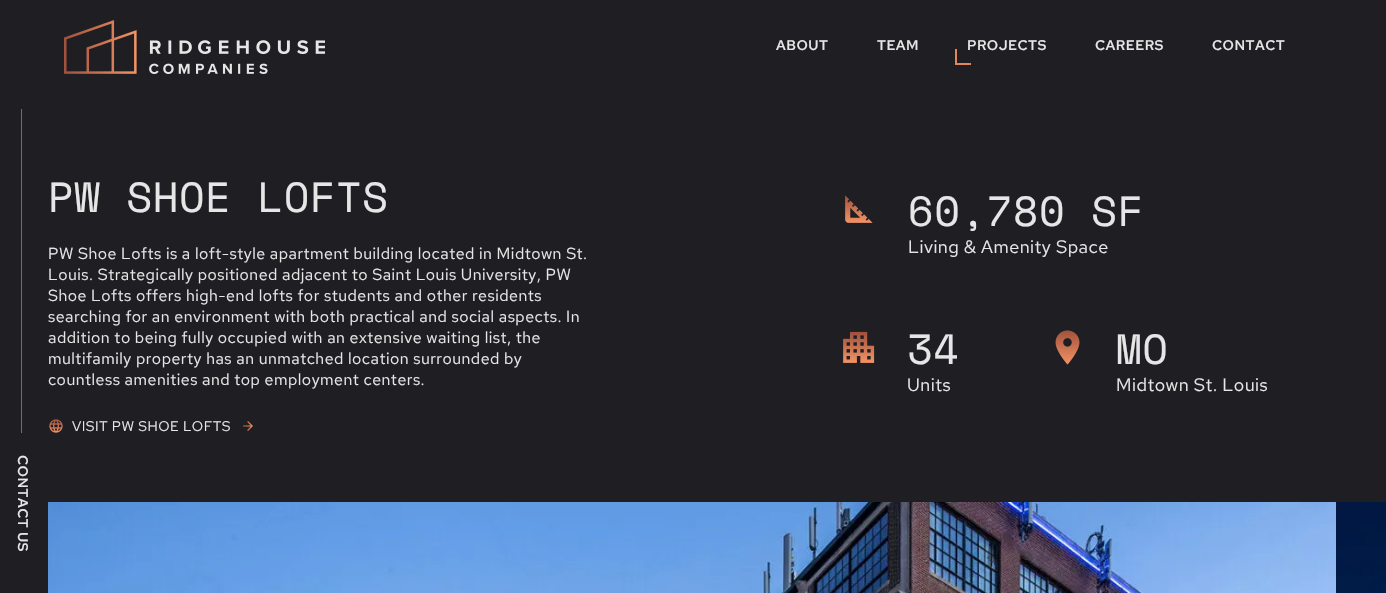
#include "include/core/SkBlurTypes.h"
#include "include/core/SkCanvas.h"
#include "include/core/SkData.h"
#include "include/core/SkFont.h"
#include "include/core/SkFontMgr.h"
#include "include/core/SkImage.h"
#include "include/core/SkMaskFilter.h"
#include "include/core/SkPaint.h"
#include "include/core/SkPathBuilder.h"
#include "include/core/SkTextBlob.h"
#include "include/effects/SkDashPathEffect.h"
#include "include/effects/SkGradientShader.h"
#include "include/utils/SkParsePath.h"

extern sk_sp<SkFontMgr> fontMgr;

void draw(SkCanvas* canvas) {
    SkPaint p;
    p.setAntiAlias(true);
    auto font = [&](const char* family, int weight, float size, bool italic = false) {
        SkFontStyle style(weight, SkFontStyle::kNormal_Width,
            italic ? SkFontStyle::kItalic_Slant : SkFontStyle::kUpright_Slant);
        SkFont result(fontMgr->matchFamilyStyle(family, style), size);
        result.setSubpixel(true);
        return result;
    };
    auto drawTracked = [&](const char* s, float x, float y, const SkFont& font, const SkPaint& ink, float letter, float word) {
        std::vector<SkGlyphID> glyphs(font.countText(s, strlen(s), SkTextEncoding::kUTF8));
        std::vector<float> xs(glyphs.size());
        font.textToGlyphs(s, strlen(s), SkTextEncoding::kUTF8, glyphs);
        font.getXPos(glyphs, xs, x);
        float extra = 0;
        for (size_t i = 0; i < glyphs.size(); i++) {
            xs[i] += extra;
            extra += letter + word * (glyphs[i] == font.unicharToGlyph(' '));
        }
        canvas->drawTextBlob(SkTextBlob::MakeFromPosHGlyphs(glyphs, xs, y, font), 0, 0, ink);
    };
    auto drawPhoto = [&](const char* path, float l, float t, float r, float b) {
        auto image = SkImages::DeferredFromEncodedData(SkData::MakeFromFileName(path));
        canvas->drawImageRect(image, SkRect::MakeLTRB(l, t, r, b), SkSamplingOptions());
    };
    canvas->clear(0xFF1E1E23);
    drawPhoto("media/1.png", 64, 20, 325, 74);
    auto font1 = font("Red Hat Text", 500, 14);
    p.setColor(0xFFE6E6E6);
    {
        const struct { const char* s; float x, y; } items[] = {
            {"ABOUT", 776, 50},
            {"TEAM", 877, 50},
            {"PROJECTS", 967, 50},
        };
        for (auto [s, x, y] : items) {
            drawTracked(s, x, y, font1, p, 0.48f, 0);
        }
    }
    p.setColor(0xFFE3865D);
    canvas->drawRect(SkRect::MakeLTRB(955, 63, 971, 65), p);
    canvas->drawRect(SkRect::MakeLTRB(955, 49, 957, 65), p);
    p.setColor(0xFFE6E6E6);
    drawTracked("CAREERS", 1095, 50, font1, p, 0.48f, 0);
    drawTracked("CONTACT", 1212, 50, font1, p, 0.48f, 0);
    p.setColor(0xFF6E6E71);
    canvas->drawRect(SkRect::MakeLTRB(21, 109, 22, 433), p);
    p.setColor(0xFFE6E6E6);
    canvas->save();
    canvas->rotate(90, 18, 455);
    drawTracked("CONTACT US", 18, 455, font1, p, 0.48f, 0);
    canvas->restore();
    auto font2 = font("Space Mono", 400, 42);
    drawTracked("PW SHOE LOFTS", 48, 212, font2, p, 0.48f, 0);
    auto font3 = font("Red Hat Text", 400, 16);
    {
        const struct { const char* s; float x, y; } items[] = {
            {"PW Shoe Lofts is a loft-style apartment building located in Midtown St.", 48, 259},
            {"Louis. Strategically positioned adjacent to Saint Louis University, PW", 48, 280},
            {"Shoe Lofts offers high-end lofts for students and other residents", 48, 301},
            {"searching for an environment with both practical and social aspects. In", 48, 322},
            {"addition to being fully occupied with an extensive waiting list, the", 48, 343},
            {"multifamily property has an unmatched location surrounded by", 48, 364},
            {"countless amenities and top employment centers.", 48, 385},
        };
        for (auto [s, x, y] : items) {
            drawTracked(s, x, y, font3, p, 0.48f, 0);
        }
    }
    drawPhoto("media/2.png", 49, 419, 63, 433);
    auto font4 = font("Red Hat Text", 400, 14);
    drawTracked("VISIT PW SHOE LOFTS", 72, 431, font4, p, 0.48f, 0);
    drawPhoto("media/3.png", 243, 421, 253, 431);
    drawPhoto("media/4.png", 845, 195, 873, 223);
    drawTracked("60,780 SF", 908, 226, font2, p, 0.48f, 0);
    auto font5 = font("Red Hat Text", 400, 18);
    drawTracked("Living & Amenity Space", 908, 253, font5, p, 0.48f, 0);
    drawPhoto("media/5.png", 843, 331, 875, 363);
    drawTracked("34", 907, 364, font2, p, 0.48f, 0);
    drawTracked("Units", 907, 391, font5, p, 0.48f, 0);
    drawPhoto("media/6.png", 1055, 330, 1080, 365);
    drawTracked("MO", 1116, 364, font2, p, 0.48f, 0);
    drawTracked("Midtown St. Louis", 1116, 391, font5, p, 0.48f, 0);
    drawPhoto("media/7.png", 48, 502, 1336, 593);
    drawPhoto("media/8.png", 1336, 502, 1386, 593);
}
